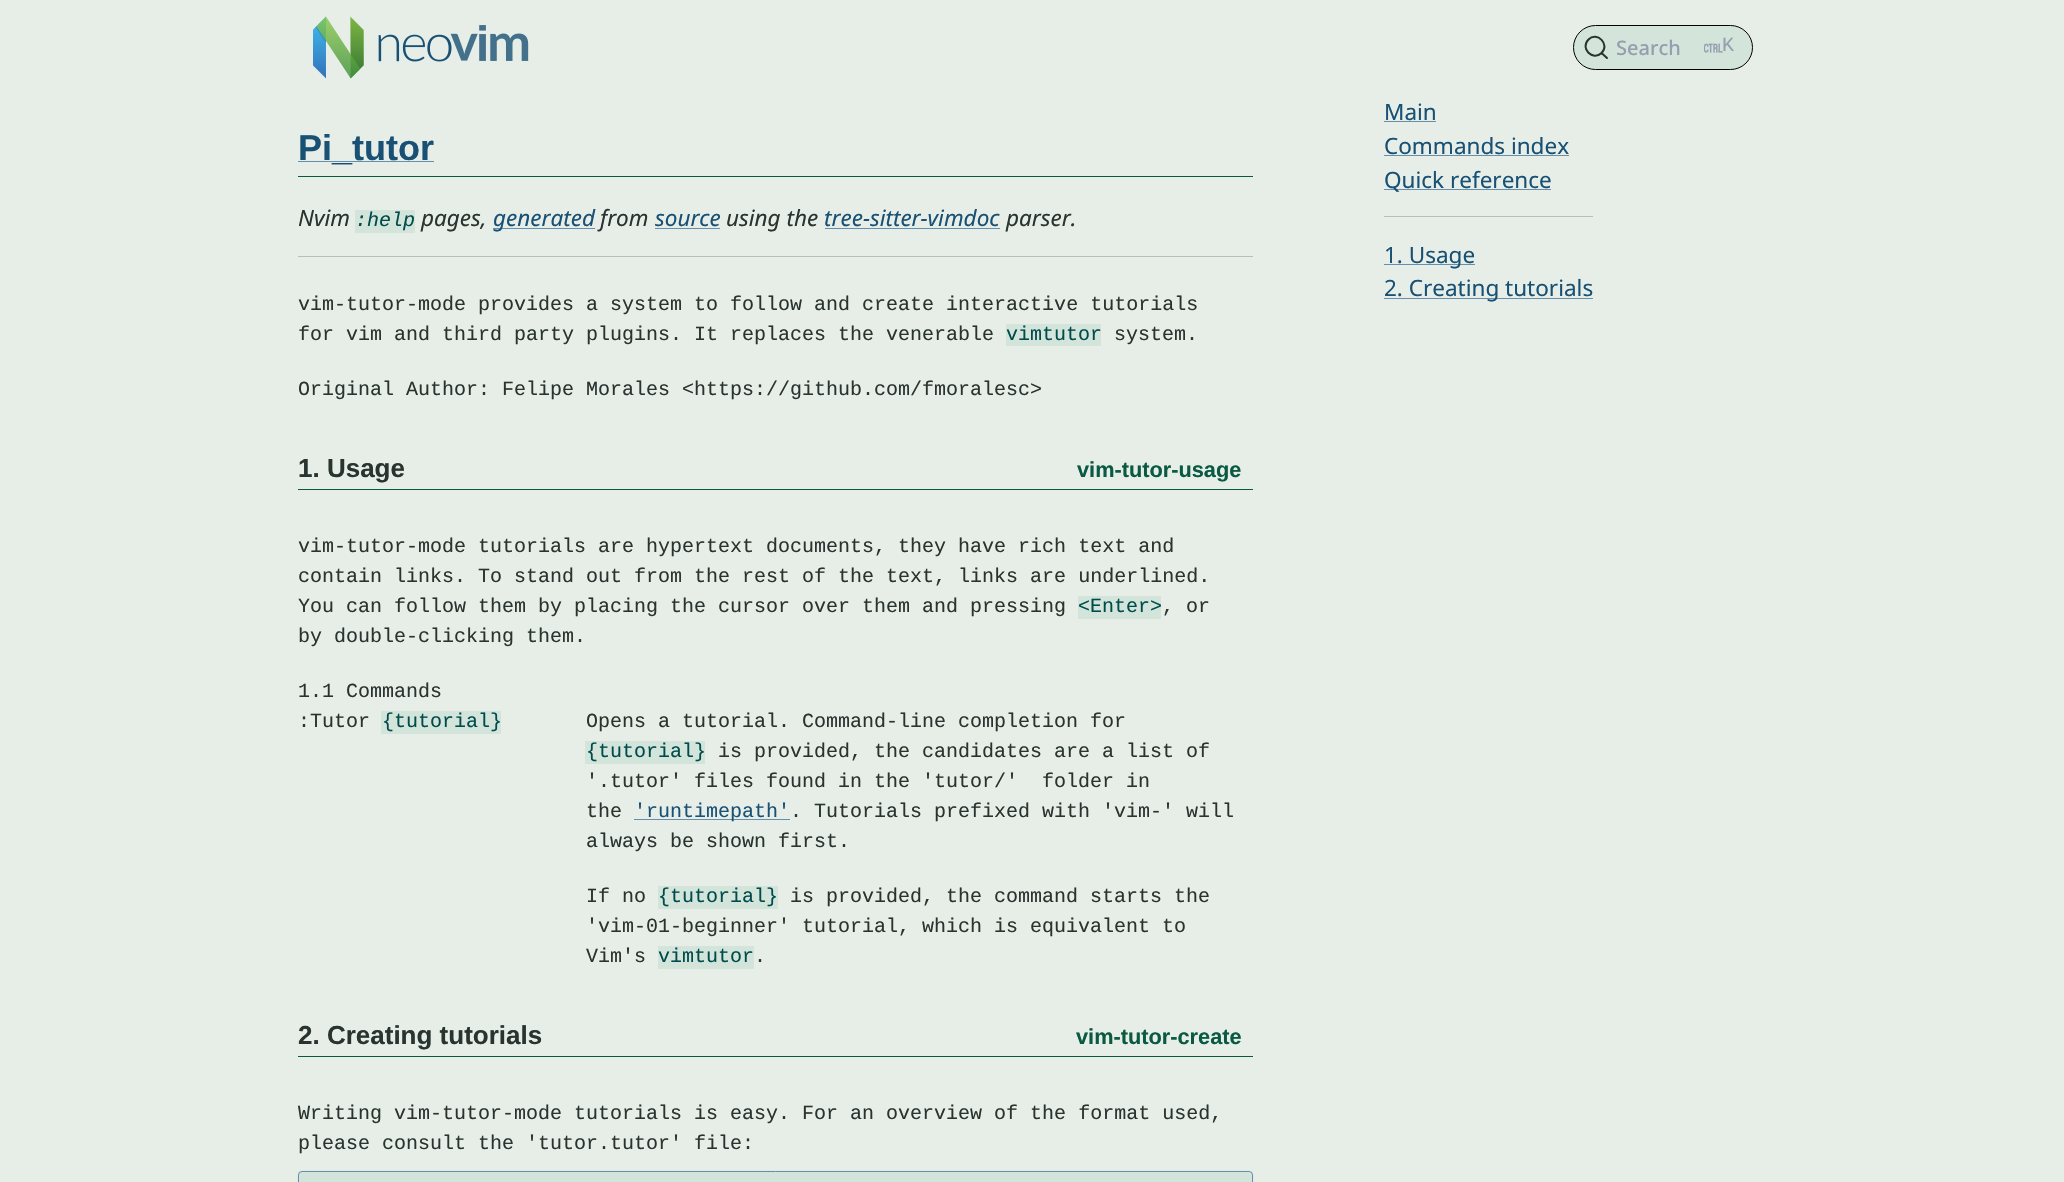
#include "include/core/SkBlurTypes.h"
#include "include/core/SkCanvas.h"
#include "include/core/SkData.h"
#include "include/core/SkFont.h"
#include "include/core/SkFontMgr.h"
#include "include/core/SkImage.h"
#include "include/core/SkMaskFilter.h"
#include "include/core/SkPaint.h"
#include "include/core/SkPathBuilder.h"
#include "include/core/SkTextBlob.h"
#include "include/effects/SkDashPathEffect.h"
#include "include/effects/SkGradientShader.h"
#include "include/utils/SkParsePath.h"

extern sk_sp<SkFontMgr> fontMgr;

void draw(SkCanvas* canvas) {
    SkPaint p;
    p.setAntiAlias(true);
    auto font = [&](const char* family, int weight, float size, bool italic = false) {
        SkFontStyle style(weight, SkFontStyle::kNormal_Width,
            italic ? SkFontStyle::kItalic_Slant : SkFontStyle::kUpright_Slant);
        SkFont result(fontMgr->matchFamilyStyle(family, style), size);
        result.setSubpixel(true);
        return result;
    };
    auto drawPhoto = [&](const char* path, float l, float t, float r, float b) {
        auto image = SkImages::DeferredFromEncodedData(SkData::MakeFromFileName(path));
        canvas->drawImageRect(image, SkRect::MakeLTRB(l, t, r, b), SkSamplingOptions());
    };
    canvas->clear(0xFFE7EEE8);
    drawPhoto("media/1.png", 313, 16, 529, 79);
    p.setColor(0xFFD3E4DB);
    canvas->drawRoundRect(SkRect::MakeLTRB(1573.5f, 25.5f, 1752.5f, 69.5f), 22, 22, p);
    p.setStyle(SkPaint::kStroke_Style);
    p.setStrokeWidth(1);
    p.setColor(0xFF000000);
    canvas->drawRoundRect(SkRect::MakeLTRB(1573.5f, 25.5f, 1752.5f, 69.5f), 22, 22, p);
    p.setStrokeWidth(2);
    p.setStrokeCap(SkPaint::kRound_Cap);
    p.setStrokeJoin(SkPaint::kRound_Join);
    p.setColor(0xFF29332F);
    canvas->drawPath(SkPathBuilder().moveTo(1601.5f, 53).lineTo(1607, 58).lineTo(1601.5f, 53).cubicTo(1593, 61.5f, 1579.5f, 48.5f, 1588.5f, 39.5f).cubicTo(1597, 31, 1610.5f, 44.5f, 1601.5f, 53).close().detach(), p);
    auto font1 = font("Noto Sans", 500, 20);
    p.setStyle(SkPaint::kFill_Style);
    p.setColor(0xFF969FAF);
    canvas->drawString("Search", 1616, 55, font1, p);
    drawPhoto("media/2.png", 1704, 43, 1723, 53);
    auto font2 = font("Liberation Mono", 400, 20);
    canvas->drawString("K", 1722, 51, font2, p);
    p.setColor(0xFF095943);
    canvas->drawRect(SkRect::MakeLTRB(298, 176, 1253, 177), p);
    p.setColor(0xFF658FAC);
    canvas->drawRect(SkRect::MakeLTRB(298, 161, 434, 162), p);
    auto font3 = font("Liberation Sans", 700, 36);
    p.setColor(0xFF195174);
    canvas->drawString("Pi_tutor", 298, 160, font3, p);
    auto font4 = font("Noto Sans", 400, 22.5f, true);
    p.setColor(0xFF29332F);
    canvas->drawString("Nvim", 298, 226, font4, p);
    p.setColor(0xFFD3E4DB);
    canvas->drawRect(SkRect::MakeLTRB(355, 210, 415, 233), p);
    auto font5 = font("Liberation Mono", 400, 20, true);
    p.setColor(0xFF004B4B);
    canvas->drawString(":help", 355, 226, font5, p);
    p.setColor(0xFF29332F);
    canvas->drawString("pages,", 421, 226, font4, p);
    p.setColor(0xFF658FAC);
    canvas->drawRect(SkRect::MakeLTRB(493, 228, 595, 229), p);
    p.setColor(0xFF195174);
    canvas->drawString("generated", 493, 226, font4, p);
    p.setColor(0xFF29332F);
    canvas->drawString("from", 600, 226, font4, p);
    p.setColor(0xFF195174);
    canvas->drawString("source", 655, 226, font4, p);
    p.setColor(0xFF658FAC);
    canvas->drawRect(SkRect::MakeLTRB(655, 228, 720, 229), p);
    p.setColor(0xFF29332F);
    canvas->drawString("using the", 726, 226, font4, p);
    p.setColor(0xFF195174);
    canvas->drawString("tree-sitter-vimdoc", 824, 226, font4, p);
    p.setColor(0xFF29332F);
    canvas->drawString("parser.", 1006, 226, font4, p);
    p.setColor(0xFF658FAC);
    canvas->drawRect(SkRect::MakeLTRB(825, 228, 1000, 229), p);
    p.setColor(0xFFB8BFBA);
    canvas->drawRect(SkRect::MakeLTRB(298, 256, 1253, 257), p);
    p.setColor(0xFF29332F);
    canvas->drawString("vim-tutor-mode provides a system to follow and create interactive tutorials", 298, 310, font2, p);
    canvas->drawString("for vim and third party plugins. It replaces the venerable", 298, 340, font2, p);
    p.setColor(0xFFD3E4DB);
    canvas->drawRect(SkRect::MakeLTRB(1006, 324, 1101, 346), p);
    p.setColor(0xFF004B4B);
    canvas->drawString("vimtutor", 1006, 340, font2, p);
    p.setColor(0xFF29332F);
    canvas->drawString("system.", 1114, 340, font2, p);
    canvas->drawString("Original Author: Felipe Morales <https://github.com/fmoralesc>", 298, 395, font2, p);
    p.setColor(0xFF095943);
    canvas->drawRect(SkRect::MakeLTRB(298, 489, 1253, 490), p);
    auto font6 = font("Liberation Sans", 700, 26);
    p.setColor(0xFF29332F);
    canvas->drawString("1. Usage", 298, 477, font6, p);
    auto font7 = font("Liberation Sans", 700, 21.75f);
    p.setColor(0xFF095943);
    canvas->drawString("vim-tutor-usage", 1077, 477, font7, p);
    p.setColor(0xFF29332F);
    {
        const struct { const char* s; float x, y; } items[] = {
            {"vim-tutor-mode tutorials are hypertext documents, they have rich text and", 298, 552},
            {"contain links. To stand out from the rest of the text, links are underlined.", 298, 582},
            {"You can follow them by placing the cursor over them and pressing", 298, 612},
        };
        for (auto [s, x, y] : items) {
            canvas->drawString(s, x, y, font2, p);
        }
    }
    p.setColor(0xFFD3E4DB);
    canvas->drawRect(SkRect::MakeLTRB(1078, 596, 1161, 619), p);
    p.setColor(0xFF004B4B);
    canvas->drawString("<Enter>", 1078, 612, font2, p);
    p.setColor(0xFF29332F);
    {
        const struct { const char* s; float x, y; } items[] = {
            {", or", 1162, 612},
            {"by double-clicking them.", 298, 642},
            {"1.1 Commands", 298, 697},
            {":Tutor", 298, 727},
        };
        for (auto [s, x, y] : items) {
            canvas->drawString(s, x, y, font2, p);
        }
    }
    p.setColor(0xFFD3E4DB);
    canvas->drawRect(SkRect::MakeLTRB(381, 711, 501, 734), p);
    p.setColor(0xFF004B4B);
    canvas->drawString("{tutorial}", 382, 727, font2, p);
    p.setColor(0xFF29332F);
    canvas->drawString("Opens a tutorial. Command-line completion for", 586, 727, font2, p);
    p.setColor(0xFFD3E4DB);
    canvas->drawRect(SkRect::MakeLTRB(585, 741, 705, 764), p);
    p.setColor(0xFF004B4B);
    canvas->drawString("{tutorial}", 586, 757, font2, p);
    p.setColor(0xFF29332F);
    {
        const struct { const char* s; float x, y; } items[] = {
            {"is provided, the candidates are a list of", 718, 757},
            {"'.tutor' files found in the 'tutor/'  folder in", 586, 787},
            {"the", 586, 817},
        };
        for (auto [s, x, y] : items) {
            canvas->drawString(s, x, y, font2, p);
        }
    }
    p.setColor(0xFF658FAC);
    canvas->drawRect(SkRect::MakeLTRB(634, 819, 790, 820), p);
    p.setColor(0xFF195174);
    canvas->drawString("'runtimepath'", 634, 817, font2, p);
    p.setColor(0xFF29332F);
    {
        const struct { const char* s; float x, y; } items[] = {
            {". Tutorials prefixed with 'vim-' will", 790, 817},
            {"always be shown first.", 586, 847},
            {"If no", 586, 902},
        };
        for (auto [s, x, y] : items) {
            canvas->drawString(s, x, y, font2, p);
        }
    }
    p.setColor(0xFFD3E4DB);
    canvas->drawRect(SkRect::MakeLTRB(658, 886, 778, 909), p);
    p.setColor(0xFF004B4B);
    canvas->drawString("{tutorial}", 658, 902, font2, p);
    p.setColor(0xFF29332F);
    {
        const struct { const char* s; float x, y; } items[] = {
            {"is provided, the command starts the", 790, 902},
            {"'vim-01-beginner' tutorial, which is equivalent to", 586, 932},
            {"Vim's", 586, 962},
        };
        for (auto [s, x, y] : items) {
            canvas->drawString(s, x, y, font2, p);
        }
    }
    p.setColor(0xFFD3E4DB);
    canvas->drawRect(SkRect::MakeLTRB(658, 946, 754, 969), p);
    p.setColor(0xFF004B4B);
    canvas->drawString("vimtutor", 658, 962, font2, p);
    p.setColor(0xFF29332F);
    canvas->drawString(".", 754, 962, font2, p);
    p.setColor(0xFF095943);
    canvas->drawRect(SkRect::MakeLTRB(298, 1056, 1253, 1057), p);
    p.setColor(0xFF29332F);
    canvas->drawString("2. Creating tutorials", 298, 1044, font6, p);
    p.setColor(0xFF095943);
    canvas->drawString("vim-tutor-create", 1076, 1044, font7, p);
    p.setColor(0xFF29332F);
    canvas->drawString("Writing vim-tutor-mode tutorials is easy. For an overview of the format used,", 298, 1119, font2, p);
    canvas->drawString("please consult the 'tutor.tutor' file:", 298, 1149, font2, p);
    p.setColor(0xFFD3E4DB);
    p.setMaskFilter(SkMaskFilter::MakeBlur(kNormal_SkBlurStyle, 1));
    canvas->drawRoundRect(SkRect::MakeLTRB(298, 1171, 1253, 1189), 4, 4, p);
    p.setMaskFilter(nullptr);
    canvas->drawRoundRect(SkRect::MakeLTRB(298.5f, 1171.5f, 1252.5f, 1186.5f), 3.5f, 3.5f, p);
    p.setStyle(SkPaint::kStroke_Style);
    p.setStrokeWidth(1);
    p.setStrokeCap(SkPaint::kButt_Cap);
    p.setStrokeJoin(SkPaint::kMiter_Join);
    p.setColor(0xFF658FAC);
    canvas->drawRoundRect(SkRect::MakeLTRB(298.5f, 1171.5f, 1252.5f, 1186.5f), 3.5f, 3.5f, p);
    auto font8 = font("Noto Sans", 400, 22.5f);
    p.setStyle(SkPaint::kFill_Style);
    p.setColor(0xFF195174);
    canvas->drawString("Main", 1384, 120, font8, p);
    p.setColor(0xFF658FAC);
    canvas->drawRect(SkRect::MakeLTRB(1384, 121, 1436, 122), p);
    p.setColor(0xFF195174);
    canvas->drawString("Commands index", 1384, 154, font8, p);
    p.setColor(0xFF658FAC);
    canvas->drawRect(SkRect::MakeLTRB(1384, 155, 1569, 156), p);
    canvas->drawRect(SkRect::MakeLTRB(1384, 189, 1551, 190), p);
    p.setColor(0xFF195174);
    canvas->drawString("Quick reference", 1384, 188, font8, p);
    p.setColor(0xFFB8BFBA);
    canvas->drawRect(SkRect::MakeLTRB(1384, 216, 1593, 217), p);
    p.setColor(0xFF658FAC);
    canvas->drawRect(SkRect::MakeLTRB(1384, 264, 1475, 265), p);
    p.setColor(0xFF195174);
    canvas->drawString("1. Usage", 1384, 263, font8, p);
    p.setColor(0xFF658FAC);
    canvas->drawRect(SkRect::MakeLTRB(1384, 298, 1593, 299), p);
    p.setColor(0xFF195174);
    canvas->drawString("2. Creating tutorials", 1384, 296, font8, p);
}
